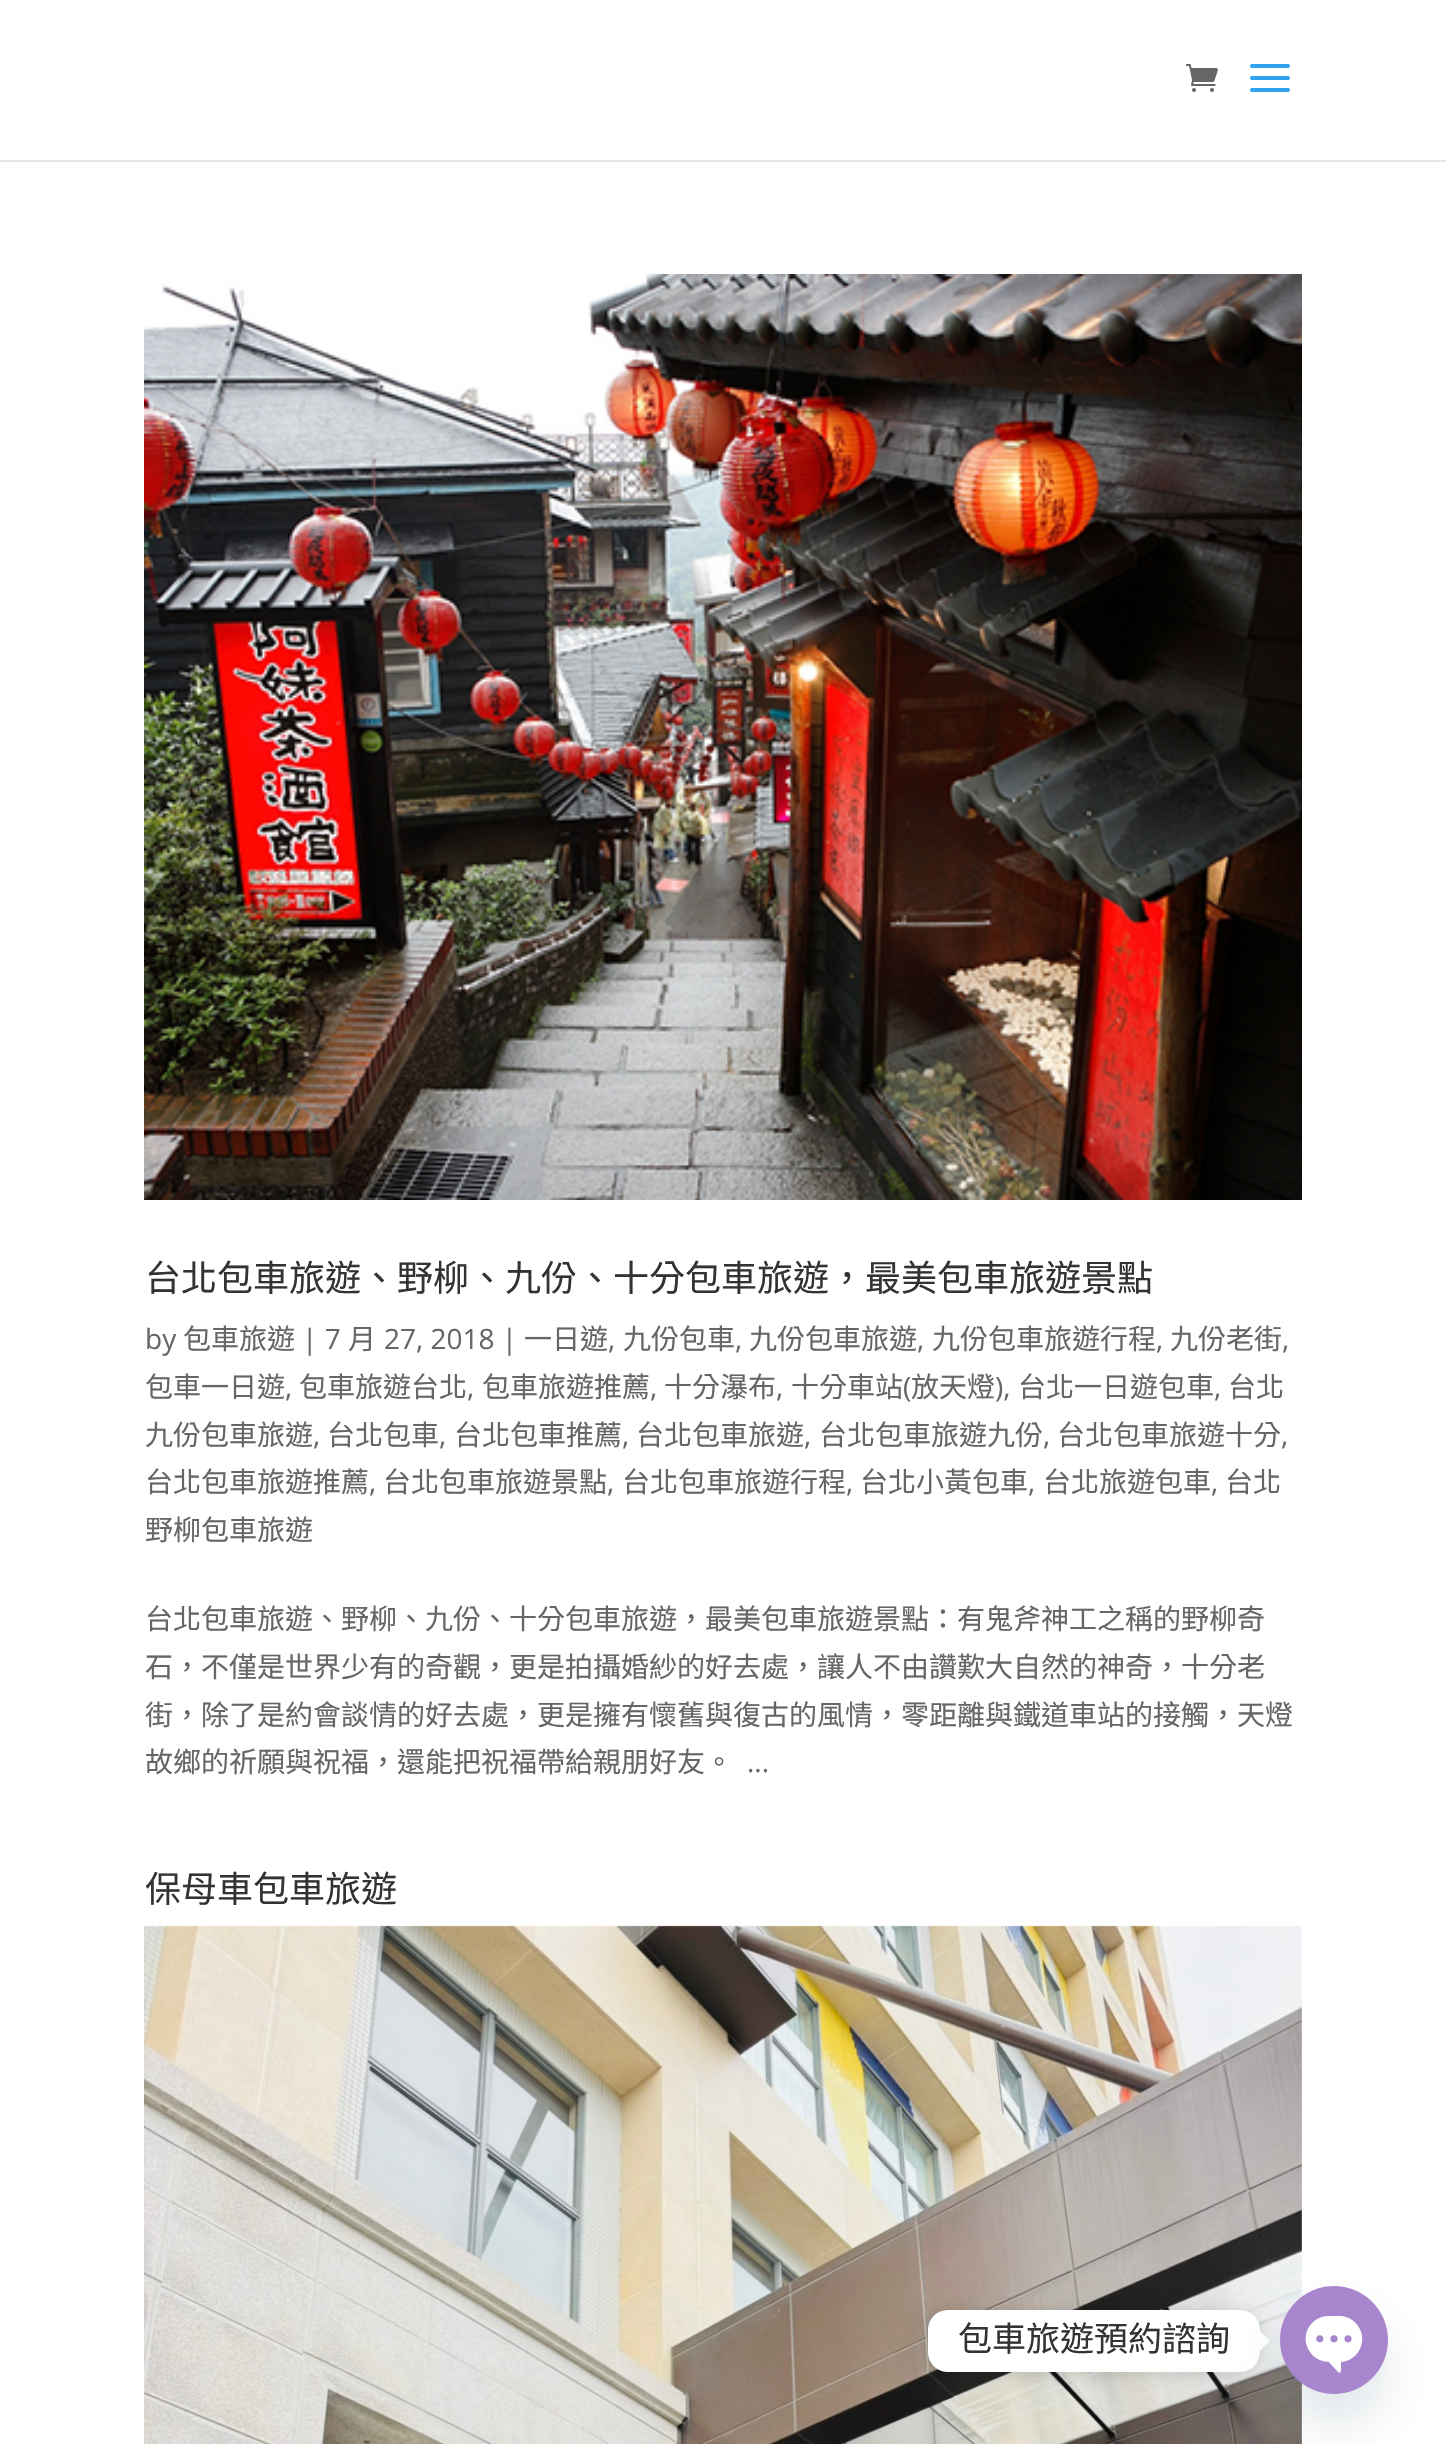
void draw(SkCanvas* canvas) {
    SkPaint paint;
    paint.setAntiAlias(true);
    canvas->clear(0xFFFFFFFF);
    paint.setColor(0xFFE6E6E6);
    canvas->drawRect(SkRect::MakeXYWH(0, 160, 1446, 2), paint);
    canvas->drawImageRect(SkImages::DeferredFromEncodedData(SkData::MakeFromFileName("img1.png")), SkRect::MakeXYWH(1186, 64, 32, 28), SkSamplingOptions());
    canvas->drawImageRect(SkImages::DeferredFromEncodedData(SkData::MakeFromFileName("img2.png")), SkRect::MakeXYWH(1250, 64, 40, 28), SkSamplingOptions());
    canvas->drawImageRect(SkImages::DeferredFromEncodedData(SkData::MakeFromFileName("img3.png")), SkRect::MakeXYWH(144, 274, 1158, 926), SkSamplingOptions());
    SkFont font1(fontMgr->matchFamilyStyle("Noto Sans CJK TC", SkFontStyle::Normal()), 36);
    font1.setSubpixel(true);
    paint.setColor(0xFF333333);
    canvas->drawString("台北包車旅遊、野柳、九份、十分包車旅遊，最美包車旅遊景點", 145, 1291, font1, paint);
    SkFont font2(fontMgr->matchFamilyStyle("Open Sans", SkFontStyle::Normal()), 28);
    font2.setSubpixel(true);
    paint.setColor(0xFF666666);
    canvas->drawString("by", 145, 1349, font2, paint);
    SkFont font3(fontMgr->matchFamilyStyle("Noto Sans CJK TC", SkFontStyle::Normal()), 28);
    font3.setSubpixel(true);
    canvas->drawString("包車旅遊", 183, 1349, font3, paint);
    canvas->drawString("| 7", 302, 1349, font2, paint);
    canvas->drawString("月", 348, 1349, font3, paint);
    canvas->drawString("27, 2018 |", 384, 1349, font2, paint);
    canvas->drawString("一日遊", 524, 1349, font3, paint);
    canvas->drawString(",", 608, 1349, font2, paint);
    canvas->drawString("九份包車", 623, 1349, font3, paint);
    canvas->drawString(",", 735, 1349, font2, paint);
    canvas->drawString("九份包車旅遊", 749, 1349, font3, paint);
    canvas->drawString(",", 917, 1349, font2, paint);
    canvas->drawString("九份包車旅遊行程", 932, 1349, font3, paint);
    canvas->drawString(",", 1156, 1349, font2, paint);
    canvas->drawString("九份老街", 1170, 1349, font3, paint);
    canvas->drawString(",", 1282, 1349, font2, paint);
    canvas->drawString("包車一日遊", 145, 1397, font3, paint);
    canvas->drawString(",", 285, 1397, font2, paint);
    canvas->drawString("包車旅遊台北", 299, 1397, font3, paint);
    canvas->drawString(",", 467, 1397, font2, paint);
    canvas->drawString("包車旅遊推薦", 482, 1397, font3, paint);
    canvas->drawString(",", 650, 1397, font2, paint);
    canvas->drawString("十分瀑布", 664, 1397, font3, paint);
    canvas->drawString(",", 776, 1397, font2, paint);
    canvas->drawString("十分車站", 791, 1397, font3, paint);
    canvas->drawString("(", 903, 1397, font2, paint);
    canvas->drawString("放天燈", 911, 1397, font3, paint);
    canvas->drawString("),", 995, 1397, font2, paint);
    canvas->drawString("台北一日遊包車", 1018, 1397, font3, paint);
    canvas->drawString(",", 1214, 1397, font2, paint);
    canvas->drawString("台北", 1228, 1397, font3, paint);
    canvas->drawString("九份包車旅遊", 145, 1445, font3, paint);
    canvas->drawString(",", 313, 1445, font2, paint);
    canvas->drawString("台北包車", 327, 1445, font3, paint);
    canvas->drawString(",", 439, 1445, font2, paint);
    canvas->drawString("台北包車推薦", 454, 1445, font3, paint);
    canvas->drawString(",", 622, 1445, font2, paint);
    canvas->drawString("台北包車旅遊", 636, 1445, font3, paint);
    canvas->drawString(",", 804, 1445, font2, paint);
    canvas->drawString("台北包車旅遊九份", 819, 1445, font3, paint);
    canvas->drawString(",", 1043, 1445, font2, paint);
    canvas->drawString("台北包車旅遊十分", 1057, 1445, font3, paint);
    canvas->drawString(",", 1281, 1445, font2, paint);
    canvas->drawString("台北包車旅遊推薦", 145, 1492, font3, paint);
    canvas->drawString(",", 369, 1492, font2, paint);
    canvas->drawString("台北包車旅遊景點", 383, 1492, font3, paint);
    canvas->drawString(",", 607, 1492, font2, paint);
    canvas->drawString("台北包車旅遊行程", 622, 1492, font3, paint);
    canvas->drawString(",", 846, 1492, font2, paint);
    canvas->drawString("台北小黃包車", 860, 1492, font3, paint);
    canvas->drawString(",", 1028, 1492, font2, paint);
    canvas->drawString("台北旅遊包車", 1043, 1492, font3, paint);
    canvas->drawString(",", 1211, 1492, font2, paint);
    canvas->drawString("台北", 1225, 1492, font3, paint);
    canvas->drawString("野柳包車旅遊", 145, 1540, font3, paint);
    canvas->drawString("台北包車旅遊、野柳、九份、十分包車旅遊，最美包車旅遊景點：有鬼斧神工之稱的野柳奇", 145, 1629, font3, paint);
    canvas->drawString("石，不僅是世界少有的奇觀，更是拍攝婚紗的好去處，讓人不由讚歎大自然的神奇，十分老", 145, 1677, font3, paint);
    canvas->drawString("街，除了是約會談情的好去處，更是擁有懷舊與復古的風情，零距離與鐵道車站的接觸，天燈", 145, 1725, font3, paint);
    canvas->drawString("故鄉的祈願與祝福，還能把祝福帶給親朋好友。", 145, 1772, font3, paint);
    canvas->drawString("...", 747, 1772, font2, paint);
    paint.setColor(0xFF333333);
    canvas->drawString("保母車包車旅遊", 145, 1902, font1, paint);
    canvas->drawImageRect(SkImages::DeferredFromEncodedData(SkData::MakeFromFileName("img4.png")), SkRect::MakeXYWH(144, 1925, 1158, 519), SkSamplingOptions());
    paint.setColor(0x26000000);
    paint.setMaskFilter(SkMaskFilter::MakeBlur(kNormal_SkBlurStyle, 7.5f));
    canvas->drawRoundRect(SkRect::MakeXYWH(928, 2312, 332, 62), 20, 20, paint);
    paint.setMaskFilter(nullptr);
    paint.setColor(0xFFFFFFFF);
    canvas->drawRoundRect(SkRect::MakeXYWH(928, 2310, 332, 62), 20, 20, paint);
    SkFont font4(fontMgr->matchFamilyStyle("Noto Sans CJK TC", SkFontStyle::Normal()), 34);
    font4.setSubpixel(true);
    paint.setColor(0xFF333333);
    canvas->drawString("包車旅遊預約諮詢", 958, 2351, font4, paint);
    paint.setColor(0xFFFFFFFF);
    canvas->drawPath(SkPathBuilder().moveTo(1260, 2351).lineTo(1260, 2331).lineTo(1270, 2341).close().detach(), paint);
    paint.setColor(0x2949687E);
    paint.setMaskFilter(SkMaskFilter::MakeBlur(kNormal_SkBlurStyle, 24));
    canvas->drawRoundRect(SkRect::MakeXYWH(1280, 2318, 108, 108), 54, 54, paint);
    paint.setMaskFilter(nullptr);
    canvas->drawImageRect(SkImages::DeferredFromEncodedData(SkData::MakeFromFileName("img5.png")), SkRect::MakeXYWH(1280, 2286, 108, 108), SkSamplingOptions());
}
